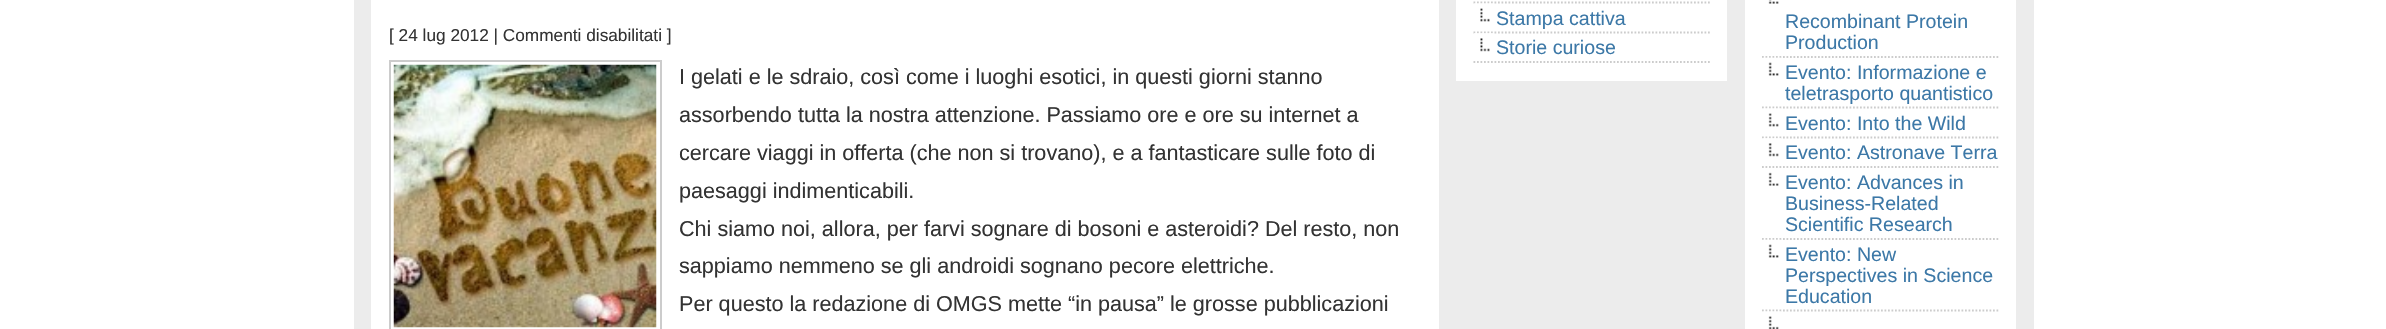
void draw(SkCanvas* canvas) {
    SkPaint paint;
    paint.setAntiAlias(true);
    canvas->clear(0xFFFFFFFF);
    paint.setColor(0xFFECECEC);
    canvas->drawRect(SkRect::MakeXYWH(354, 0, 1680, 329), paint);
    paint.setColor(0xFFFFFFFF);
    canvas->drawRect(SkRect::MakeXYWH(371, 0, 1068, 329), paint);
    SkFont font1(fontMgr->matchFamilyStyle("Liberation Sans", SkFontStyle::Normal()), 17.25f);
    font1.setSubpixel(true);
    paint.setColor(0xFF333333);
    canvas->drawString("[ 24 lug 2012 | Commenti disabilitati ]", 389, 41, font1, paint);
    paint.setStyle(SkPaint::kStroke_Style);
    paint.setStrokeWidth(2);
    paint.setColor(0xFFCCCCCC);
    canvas->drawRect(SkRect::MakeXYWH(390, 61, 271, 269), paint);
    canvas->drawImageRect(SkImages::DeferredFromEncodedData(SkData::MakeFromFileName("img1.png")), SkRect::MakeXYWH(393, 64, 264, 264), SkSamplingOptions());
    SkFont font2(fontMgr->matchFamilyStyle("Liberation Sans", SkFontStyle::Normal()), 21.6f);
    font2.setSubpixel(true);
    paint.setStyle(SkPaint::kFill_Style);
    paint.setColor(0xFF333333);
    canvas->drawString("I gelati e le sdraio, così come i luoghi esotici, in questi giorni stanno", 679, 84, font2, paint);
    canvas->drawString("assorbendo tutta la nostra attenzione. Passiamo ore e ore su internet a", 679, 122, font2, paint);
    canvas->drawString("cercare viaggi in offerta (che non si trovano), e a fantasticare sulle foto di", 679, 160, font2, paint);
    canvas->drawString("paesaggi indimenticabili.", 679, 198, font2, paint);
    canvas->drawString("Chi siamo noi, allora, per farvi sognare di bosoni e asteroidi? Del resto, non", 679, 236, font2, paint);
    canvas->drawString("sappiamo nemmeno se gli androidi sognano pecore elettriche.", 679, 273, font2, paint);
    canvas->drawString("Per questo la redazione di OMGS mette “in pausa” le grosse pubblicazioni", 679, 311, font2, paint);
    paint.setColor(0xFFFFFFFF);
    canvas->drawRect(SkRect::MakeXYWH(1456, 0, 271, 81), paint);
    paint.setStyle(SkPaint::kStroke_Style);
    paint.setStrokeWidth(1.8f);
    paint.setColor(0xFFCCCCCC);
    paint.setPathEffect(SkDashPathEffect::Make({{1.75f, 1.75f}}, 0));
    canvas->drawPath(SkPathBuilder().moveTo(1473.5f, 2.5f).lineTo(1710, 2.5f).detach(), paint);
    paint.setPathEffect(nullptr);
    canvas->drawImageRect(SkImages::DeferredFromEncodedData(SkData::MakeFromFileName("img2.png")), SkRect::MakeXYWH(1474, 3, 19, 19), SkSamplingOptions());
    paint.setPathEffect(SkDashPathEffect::Make({{1.75f, 1.75f}}, 0));
    canvas->drawPath(SkPathBuilder().moveTo(1473.5f, 32.5f).lineTo(1710, 32.5f).detach(), paint);
    paint.setPathEffect(nullptr);
    SkFont font3(fontMgr->matchFamilyStyle("Liberation Sans", SkFontStyle::Normal()), 19.6f);
    font3.setSubpixel(true);
    paint.setStyle(SkPaint::kFill_Style);
    paint.setColor(0xFF3C78A7);
    canvas->drawString("Stampa cattiva", 1496, 25, font3, paint);
    canvas->drawImageRect(SkImages::DeferredFromEncodedData(SkData::MakeFromFileName("img3.png")), SkRect::MakeXYWH(1474, 33, 19, 19), SkSamplingOptions());
    paint.setStyle(SkPaint::kStroke_Style);
    paint.setColor(0xFFCCCCCC);
    paint.setPathEffect(SkDashPathEffect::Make({{1.75f, 1.75f}}, 0));
    canvas->drawPath(SkPathBuilder().moveTo(1473.5f, 62).lineTo(1710, 62).detach(), paint);
    paint.setPathEffect(nullptr);
    paint.setStyle(SkPaint::kFill_Style);
    paint.setColor(0xFF3C78A7);
    canvas->drawString("Storie curiose", 1496, 54, font3, paint);
    paint.setColor(0xFFFFFFFF);
    canvas->drawRect(SkRect::MakeXYWH(1745, 0, 271, 329), paint);
    canvas->drawImageRect(SkImages::DeferredFromEncodedData(SkData::MakeFromFileName("img4.png")), SkRect::MakeXYWH(1768, 0, 11, 4), SkSamplingOptions());
    paint.setStyle(SkPaint::kStroke_Style);
    paint.setColor(0xFFCCCCCC);
    paint.setPathEffect(SkDashPathEffect::Make({{1.75f, 1.75f}}, 0));
    canvas->drawPath(SkPathBuilder().moveTo(1762, 57).lineTo(1998.5f, 57).detach(), paint);
    paint.setPathEffect(nullptr);
    paint.setStyle(SkPaint::kFill_Style);
    paint.setColor(0xFF3C78A7);
    canvas->drawString("Recombinant Protein", 1785, 28, font3, paint);
    canvas->drawString("Production", 1785, 49, font3, paint);
    canvas->drawImageRect(SkImages::DeferredFromEncodedData(SkData::MakeFromFileName("img5.png")), SkRect::MakeXYWH(1762, 57, 19, 19), SkSamplingOptions());
    paint.setStyle(SkPaint::kStroke_Style);
    paint.setColor(0xFFCCCCCC);
    paint.setPathEffect(SkDashPathEffect::Make({{1.75f, 1.75f}}, 0));
    canvas->drawPath(SkPathBuilder().moveTo(1762, 107.5f).lineTo(1998.5f, 107.5f).detach(), paint);
    paint.setPathEffect(nullptr);
    paint.setStyle(SkPaint::kFill_Style);
    paint.setColor(0xFF3C78A7);
    canvas->drawString("Evento: Informazione e", 1785, 79, font3, paint);
    canvas->drawString("teletrasporto quantistico", 1785, 100, font3, paint);
    canvas->drawImageRect(SkImages::DeferredFromEncodedData(SkData::MakeFromFileName("img6.png")), SkRect::MakeXYWH(1762, 108, 19, 19), SkSamplingOptions());
    paint.setStyle(SkPaint::kStroke_Style);
    paint.setColor(0xFFCCCCCC);
    paint.setPathEffect(SkDashPathEffect::Make({{1.75f, 1.75f}}, 0));
    canvas->drawPath(SkPathBuilder().moveTo(1762, 137.5f).lineTo(1998.5f, 137.5f).detach(), paint);
    paint.setPathEffect(nullptr);
    paint.setStyle(SkPaint::kFill_Style);
    paint.setColor(0xFF3C78A7);
    canvas->drawString("Evento: Into the Wild", 1785, 130, font3, paint);
    canvas->drawImageRect(SkImages::DeferredFromEncodedData(SkData::MakeFromFileName("img7.png")), SkRect::MakeXYWH(1762, 138, 19, 19), SkSamplingOptions());
    paint.setStyle(SkPaint::kStroke_Style);
    paint.setColor(0xFFCCCCCC);
    paint.setPathEffect(SkDashPathEffect::Make({{1.75f, 1.75f}}, 0));
    canvas->drawPath(SkPathBuilder().moveTo(1762, 167).lineTo(1998.5f, 167).detach(), paint);
    paint.setPathEffect(nullptr);
    paint.setStyle(SkPaint::kFill_Style);
    paint.setColor(0xFF3C78A7);
    canvas->drawString("Evento: Astronave Terra", 1785, 159, font3, paint);
    canvas->drawImageRect(SkImages::DeferredFromEncodedData(SkData::MakeFromFileName("img8.png")), SkRect::MakeXYWH(1768, 172, 11, 14), SkSamplingOptions());
    paint.setStyle(SkPaint::kStroke_Style);
    paint.setColor(0xFFCCCCCC);
    paint.setPathEffect(SkDashPathEffect::Make({{1.75f, 1.75f}}, 0));
    canvas->drawPath(SkPathBuilder().moveTo(1762, 239).lineTo(1998.5f, 239).detach(), paint);
    paint.setPathEffect(nullptr);
    paint.setStyle(SkPaint::kFill_Style);
    paint.setColor(0xFF3C78A7);
    canvas->drawString("Evento: Advances in", 1785, 189, font3, paint);
    canvas->drawString("Business-Related", 1785, 210, font3, paint);
    canvas->drawString("Scientific Research", 1785, 231, font3, paint);
    canvas->drawImageRect(SkImages::DeferredFromEncodedData(SkData::MakeFromFileName("img5.png")), SkRect::MakeXYWH(1762, 239, 19, 19), SkSamplingOptions());
    paint.setStyle(SkPaint::kStroke_Style);
    paint.setColor(0xFFCCCCCC);
    paint.setPathEffect(SkDashPathEffect::Make({{1.75f, 1.75f}}, 0));
    canvas->drawPath(SkPathBuilder().moveTo(1762, 310.5f).lineTo(1998.5f, 310.5f).detach(), paint);
    paint.setPathEffect(nullptr);
    paint.setStyle(SkPaint::kFill_Style);
    paint.setColor(0xFF3C78A7);
    canvas->drawString("Evento: New", 1785, 261, font3, paint);
    canvas->drawString("Perspectives in Science", 1785, 282, font3, paint);
    canvas->drawString("Education", 1785, 303, font3, paint);
    canvas->drawImageRect(SkImages::DeferredFromEncodedData(SkData::MakeFromFileName("img9.png")), SkRect::MakeXYWH(1762, 311, 19, 18), SkSamplingOptions());
}
